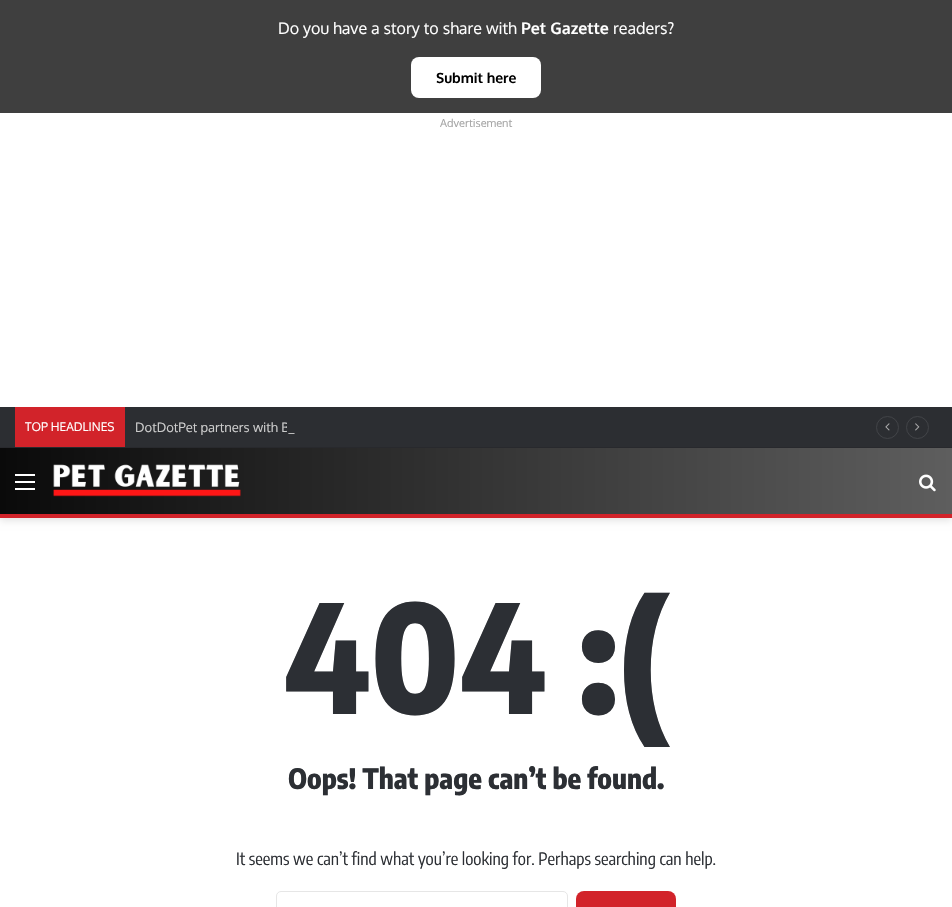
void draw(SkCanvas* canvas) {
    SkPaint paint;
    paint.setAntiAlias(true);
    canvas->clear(0xFF3F3F3F);
    SkFont font1(fontMgr->matchFamilyStyle("Oxygen", SkFontStyle::Normal()), 16);
    font1.setSubpixel(true);
    paint.setColor(0xFFFFFFFF);
    canvas->drawString("Do you have a story to share with", 278, 34, font1, paint);
    SkFont font2(fontMgr->matchFamilyStyle("Oxygen", SkFontStyle::Bold()), 16);
    font2.setSubpixel(true);
    canvas->drawString("Pet Gazette", 521, 34, font2, paint);
    canvas->drawString("readers?", 613, 34, font1, paint);
    canvas->drawRoundRect(SkRect::MakeXYWH(411, 57, 130, 41), 8, 8, paint);
    SkFont font3(fontMgr->matchFamilyStyle("Oxygen", SkFontStyle::Bold()), 14);
    font3.setSubpixel(true);
    paint.setColor(0xFF000000);
    canvas->drawString("Submit here", 436, 83, font3, paint);
    paint.setColor(0xFFFFFFFF);
    canvas->drawRect(SkRect::MakeXYWH(0, 113, 952, 794), paint);
    SkFont font4(fontMgr->matchFamilyStyle("Oxygen", SkFontStyle::Normal()), 11);
    font4.setSubpixel(true);
    paint.setColor(0xFFA5A5A5);
    canvas->drawString("Advertisement", 440, 127, font4, paint);
    paint.setColor(0x1A000000);
    paint.setMaskFilter(SkMaskFilter::MakeBlur(kNormal_SkBlurStyle, 3.5f));
    canvas->drawRect(SkRect::MakeXYWH(0, 451, 952, 70), paint);
    paint.setMaskFilter(nullptr);
    paint.setColor(0xFF2C2E32);
    canvas->drawRect(SkRect::MakeXYWH(0, 407, 952, 40), paint);
    paint.setColor(0xFF28292D);
    canvas->drawRect(SkRect::MakeXYWH(0, 447, 952, 1), paint);
    paint.setColor(0xFFD2232A);
    canvas->drawRect(SkRect::MakeXYWH(15, 407, 110, 40), paint);
    SkFont font5(fontMgr->matchFamilyStyle("Oxygen", SkFontStyle::Normal()), 12);
    font5.setSubpixel(true);
    paint.setColor(0xFFFFFFFF);
    canvas->drawString("TOP HEADLINES", 25, 431, font5, paint);
    SkFont font6(fontMgr->matchFamilyStyle("Oxygen", SkFontStyle::Normal()), 13);
    font6.setSubpixel(true);
    paint.setColor(0xFFCCCCCC);
    canvas->drawString("DotDotPet partners with B", 135, 432, font6, paint);
    paint.setColor(0xFF2C2E32);
    canvas->drawRect(SkRect::MakeXYWH(287, 423, 2, 9), paint);
    paint.setColor(0xFFCCCCCC);
    canvas->drawString("_", 288, 432, font6, paint);
    paint.setStyle(SkPaint::kStroke_Style);
    paint.setStrokeWidth(1);
    paint.setColor(0xFF414347);
    canvas->drawCircle(887.5f, 427.5f, 11, paint);
    canvas->drawImageRect(SkImages::DeferredFromEncodedData(SkData::MakeFromFileName("img1.png")), SkRect::MakeXYWH(885, 423, 5, 8), SkSamplingOptions());
    canvas->drawCircle(917.5f, 427.5f, 11, paint);
    canvas->drawImageRect(SkImages::DeferredFromEncodedData(SkData::MakeFromFileName("img2.png")), SkRect::MakeXYWH(915, 423, 5, 8), SkSamplingOptions());
    paint.setStyle(SkPaint::kFill_Style);
    {
        const SkColor colors[] = {0xFF0A0A0A, 0xFF5E5E5E};
        const float stops[] = {0, 1};
        const SkPoint ends[] = {{0, 481}, {952, 481}};
        paint.setShader(SkGradientShader::MakeLinear(ends, colors, stops, 2, SkTileMode::kClamp));
        paint.setAlpha(255);
    }
    canvas->drawRect(SkRect::MakeXYWH(0, 448, 952, 66), paint);
    paint.setShader(nullptr);
    paint.setColor(0xFFD2232A);
    canvas->drawRect(SkRect::MakeXYWH(0, 514, 952, 4), paint);
    paint.setColor(0xFFFFFFFF);
    canvas->drawRect(SkRect::MakeXYWH(15, 481, 20, 2), paint);
    canvas->drawRect(SkRect::MakeXYWH(15, 474, 20, 2), paint);
    canvas->drawRect(SkRect::MakeXYWH(15, 488, 20, 2), paint);
    canvas->drawImageRect(SkImages::DeferredFromEncodedData(SkData::MakeFromFileName("img3.png")), SkRect::MakeXYWH(53, 464, 188, 33), SkSamplingOptions());
    canvas->drawImageRect(SkImages::DeferredFromEncodedData(SkData::MakeFromFileName("img4.png")), SkRect::MakeXYWH(919, 474, 17, 18), SkSamplingOptions());
    SkFont font7(fontMgr->matchFamilyStyle("Encode Sans Condensed", SkFontStyle(800, SkFontStyle::kNormal_Width, SkFontStyle::kUpright_Slant)), 150);
    font7.setSubpixel(true);
    paint.setColor(0xFF2C2F34);
    canvas->drawString("404 :(", 284, 714, font7, paint);
    SkFont font8(fontMgr->matchFamilyStyle("Encode Sans Condensed", SkFontStyle(800, SkFontStyle::kNormal_Width, SkFontStyle::kUpright_Slant)), 28);
    font8.setSubpixel(true);
    canvas->drawString("Oops! That page can’t be found.", 288, 789, font8, paint);
    SkFont font9(fontMgr->matchFamilyStyle("Encode Sans Condensed", SkFontStyle::Normal()), 17);
    font9.setSubpixel(true);
    canvas->drawString("It seems we can’t find what you’re looking for. Perhaps searching can help.", 236, 865, font9, paint);
    paint.setStyle(SkPaint::kStroke_Style);
    paint.setColor(0xFFE6E6E6);
    canvas->drawRoundRect(SkRect::MakeXYWH(276.5f, 891.5f, 291, 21), 4.5f, 4.5f, paint);
    paint.setStyle(SkPaint::kFill_Style);
    paint.setColor(0xFFD2232A);
    canvas->drawRoundRect(SkRect::MakeXYWH(576, 891, 100, 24), 8, 8, paint);
}
